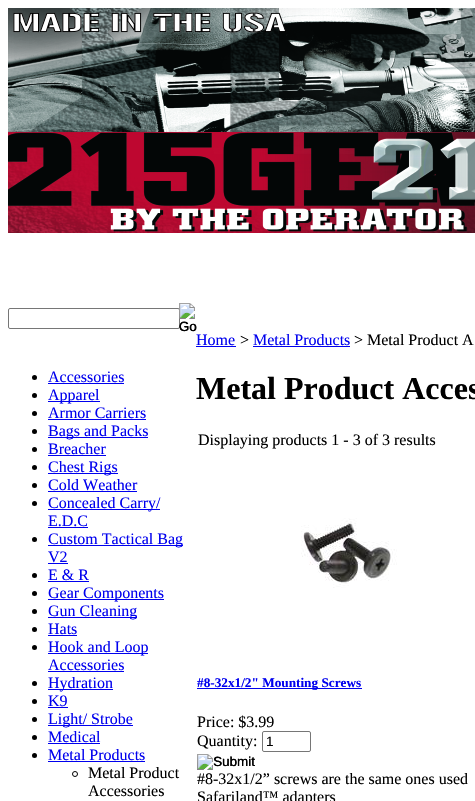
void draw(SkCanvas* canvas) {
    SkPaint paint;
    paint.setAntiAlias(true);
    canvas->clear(0xFFFFFFFF);
    canvas->drawImageRect(SkImages::DeferredFromEncodedData(SkData::MakeFromFileName("img1.png")), SkRect::MakeXYWH(8, 8, 467, 225), SkSamplingOptions());
    paint.setStyle(SkPaint::kStroke_Style);
    paint.setStrokeWidth(1);
    paint.setColor(0xFF767676);
    canvas->drawRoundRect(SkRect::MakeXYWH(8.5f, 308.5f, 171, 20), 1.5f, 1.5f, paint);
    canvas->drawImageRect(SkImages::DeferredFromEncodedData(SkData::MakeFromFileName("img2.png")), SkRect::MakeXYWH(179, 303, 17, 28), SkSamplingOptions());
    SkFont font1(fontMgr->matchFamilyStyle("Liberation Sans", SkFontStyle::Normal()), 13.5f);
    font1.setSubpixel(true);
    paint.setStyle(SkPaint::kFill_Style);
    paint.setColor(0xFF000000);
    canvas->drawString("Go", 179, 331, font1, paint);
    canvas->drawCircle(34.5f, 377.5f, 2.5f, paint);
    SkFont font2(fontMgr->matchFamilyStyle("Liberation Serif", SkFontStyle::Normal()), 16);
    font2.setSubpixel(true);
    paint.setColor(0xFF0000EE);
    canvas->drawString("Accessories", 48, 382, font2, paint);
    canvas->drawRect(SkRect::MakeXYWH(48, 383, 76, 1), paint);
    paint.setColor(0xFF000000);
    canvas->drawCircle(34.5f, 395.5f, 2.5f, paint);
    paint.setColor(0xFF0000EE);
    canvas->drawRect(SkRect::MakeXYWH(48, 401, 52, 1), paint);
    canvas->drawString("Apparel", 48, 400, font2, paint);
    paint.setColor(0xFF000000);
    canvas->drawCircle(34.5f, 413.5f, 2.5f, paint);
    paint.setColor(0xFF0000EE);
    canvas->drawString("Armor Carriers", 48, 418, font2, paint);
    canvas->drawRect(SkRect::MakeXYWH(48, 419, 98, 1), paint);
    paint.setColor(0xFF000000);
    canvas->drawCircle(34.5f, 431.5f, 2.5f, paint);
    paint.setColor(0xFF0000EE);
    canvas->drawRect(SkRect::MakeXYWH(48, 437, 100, 1), paint);
    canvas->drawString("Bags and Packs", 48, 436, font2, paint);
    paint.setColor(0xFF000000);
    canvas->drawCircle(34.5f, 449.5f, 2.5f, paint);
    paint.setColor(0xFF0000EE);
    canvas->drawString("Breacher", 48, 454, font2, paint);
    canvas->drawRect(SkRect::MakeXYWH(48, 455, 58, 1), paint);
    paint.setColor(0xFF000000);
    canvas->drawCircle(34.5f, 467.5f, 2.5f, paint);
    paint.setColor(0xFF0000EE);
    canvas->drawRect(SkRect::MakeXYWH(48, 473, 70, 1), paint);
    canvas->drawString("Chest Rigs", 48, 472, font2, paint);
    paint.setColor(0xFF000000);
    canvas->drawCircle(34.5f, 485.5f, 2.5f, paint);
    paint.setColor(0xFF0000EE);
    canvas->drawString("Cold Weather", 48, 490, font2, paint);
    canvas->drawRect(SkRect::MakeXYWH(48, 491, 89, 1), paint);
    paint.setColor(0xFF000000);
    canvas->drawCircle(34.5f, 503.5f, 2.5f, paint);
    paint.setColor(0xFF0000EE);
    canvas->drawRect(SkRect::MakeXYWH(48, 509, 112, 1), paint);
    canvas->drawString("Concealed Carry/", 48, 508, font2, paint);
    canvas->drawString("E.D.C", 48, 526, font2, paint);
    canvas->drawRect(SkRect::MakeXYWH(48, 527, 40, 1), paint);
    paint.setColor(0xFF000000);
    canvas->drawCircle(34.5f, 539.5f, 2.5f, paint);
    paint.setColor(0xFF0000EE);
    canvas->drawRect(SkRect::MakeXYWH(48, 545, 135, 1), paint);
    canvas->drawString("Custom Tactical Bag", 48, 544, font2, paint);
    canvas->drawString("V2", 48, 562, font2, paint);
    canvas->drawRect(SkRect::MakeXYWH(48, 563, 20, 1), paint);
    paint.setColor(0xFF000000);
    canvas->drawCircle(34.5f, 575.5f, 2.5f, paint);
    paint.setColor(0xFF0000EE);
    canvas->drawString("E & R", 48, 580, font2, paint);
    canvas->drawRect(SkRect::MakeXYWH(48, 581, 41, 1), paint);
    paint.setColor(0xFF000000);
    canvas->drawCircle(34.5f, 593.5f, 2.5f, paint);
    paint.setColor(0xFF0000EE);
    canvas->drawRect(SkRect::MakeXYWH(48, 599, 116, 1), paint);
    canvas->drawString("Gear Components", 48, 598, font2, paint);
    paint.setColor(0xFF000000);
    canvas->drawCircle(34.5f, 611.5f, 2.5f, paint);
    paint.setColor(0xFF0000EE);
    canvas->drawRect(SkRect::MakeXYWH(48, 617, 89, 1), paint);
    canvas->drawString("Gun Cleaning", 48, 616, font2, paint);
    paint.setColor(0xFF000000);
    canvas->drawCircle(34.5f, 629.5f, 2.5f, paint);
    paint.setColor(0xFF0000EE);
    canvas->drawString("Hats", 48, 634, font2, paint);
    canvas->drawRect(SkRect::MakeXYWH(48, 635, 29, 1), paint);
    paint.setColor(0xFF000000);
    canvas->drawCircle(34.5f, 647.5f, 2.5f, paint);
    paint.setColor(0xFF0000EE);
    canvas->drawRect(SkRect::MakeXYWH(48, 653, 100, 1), paint);
    canvas->drawString("Hook and Loop", 48, 652, font2, paint);
    canvas->drawString("Accessories", 48, 670, font2, paint);
    canvas->drawRect(SkRect::MakeXYWH(48, 671, 76, 1), paint);
    paint.setColor(0xFF000000);
    canvas->drawCircle(34.5f, 683.5f, 2.5f, paint);
    paint.setColor(0xFF0000EE);
    canvas->drawRect(SkRect::MakeXYWH(48, 689, 65, 1), paint);
    canvas->drawString("Hydration", 48, 688, font2, paint);
    paint.setColor(0xFF000000);
    canvas->drawCircle(34.5f, 701.5f, 2.5f, paint);
    paint.setColor(0xFF0000EE);
    canvas->drawString("K9", 48, 706, font2, paint);
    canvas->drawRect(SkRect::MakeXYWH(48, 707, 20, 1), paint);
    paint.setColor(0xFF000000);
    canvas->drawCircle(34.5f, 719.5f, 2.5f, paint);
    paint.setColor(0xFF0000EE);
    canvas->drawRect(SkRect::MakeXYWH(48, 725, 85, 1), paint);
    canvas->drawString("Light/ Strobe", 48, 724, font2, paint);
    paint.setColor(0xFF000000);
    canvas->drawCircle(34.5f, 737.5f, 2.5f, paint);
    paint.setColor(0xFF0000EE);
    canvas->drawString("Medical", 48, 742, font2, paint);
    canvas->drawRect(SkRect::MakeXYWH(48, 743, 52, 1), paint);
    paint.setColor(0xFF000000);
    canvas->drawCircle(34.5f, 755.5f, 2.5f, paint);
    paint.setColor(0xFF0000EE);
    canvas->drawString("Metal Products", 48, 760, font2, paint);
    canvas->drawRect(SkRect::MakeXYWH(48, 761, 97, 1), paint);
    paint.setStyle(SkPaint::kStroke_Style);
    paint.setColor(0xFF000000);
    canvas->drawCircle(75, 774, 2.5f, paint);
    paint.setStyle(SkPaint::kFill_Style);
    canvas->drawString("Metal Product", 88, 778, font2, paint);
    canvas->drawString("Accessories", 88, 796, font2, paint);
    paint.setColor(0xFF0000EE);
    canvas->drawString("Home", 196, 345, font2, paint);
    canvas->drawRect(SkRect::MakeXYWH(196, 346, 40, 1), paint);
    paint.setColor(0xFF000000);
    canvas->drawString(">", 240, 345, font2, paint);
    paint.setColor(0xFF0000EE);
    canvas->drawString("Metal Products", 253, 345, font2, paint);
    canvas->drawRect(SkRect::MakeXYWH(253, 346, 97, 1), paint);
    paint.setColor(0xFF000000);
    canvas->drawString("> Metal Product A", 354, 345, font2, paint);
    SkFont font3(fontMgr->matchFamilyStyle("Liberation Serif", SkFontStyle::Bold()), 32);
    font3.setSubpixel(true);
    canvas->drawString("Metal Product Acces", 196, 399, font3, paint);
    canvas->drawString("Displaying products 1 - 3 of 3 results", 198, 445, font2, paint);
    canvas->drawImageRect(SkImages::DeferredFromEncodedData(SkData::MakeFromFileName("img3.png")), SkRect::MakeXYWH(301, 518, 96, 70), SkSamplingOptions());
    paint.setColor(0xFF0000EE);
    canvas->drawRect(SkRect::MakeXYWH(197, 688, 165, 1), paint);
    SkFont font4(fontMgr->matchFamilyStyle("Liberation Serif", SkFontStyle::Bold()), 13.25f);
    font4.setSubpixel(true);
    canvas->drawString("#8-32x1/2\" Mounting Screws", 197, 687, font4, paint);
    paint.setColor(0xFF000000);
    canvas->drawString("Price: $3.99", 197, 727, font2, paint);
    canvas->drawString("Quantity:", 197, 746, font2, paint);
    paint.setStyle(SkPaint::kStroke_Style);
    paint.setColor(0xFF767676);
    canvas->drawRoundRect(SkRect::MakeXYWH(262.5f, 731.5f, 48, 20), 1.5f, 1.5f, paint);
    paint.setStyle(SkPaint::kFill_Style);
    paint.setColor(0xFF000000);
    canvas->drawString("1", 266, 746, font1, paint);
    canvas->drawImageRect(SkImages::DeferredFromEncodedData(SkData::MakeFromFileName("img4.png")), SkRect::MakeXYWH(197, 754, 58, 16), SkSamplingOptions());
    canvas->drawString("Submit", 213, 766, font1, paint);
    canvas->drawString("#8-32x1/2” screws are the same ones used", 197, 784, font2, paint);
    canvas->drawString("Safariland™ adapters", 197, 802, font2, paint);
}
